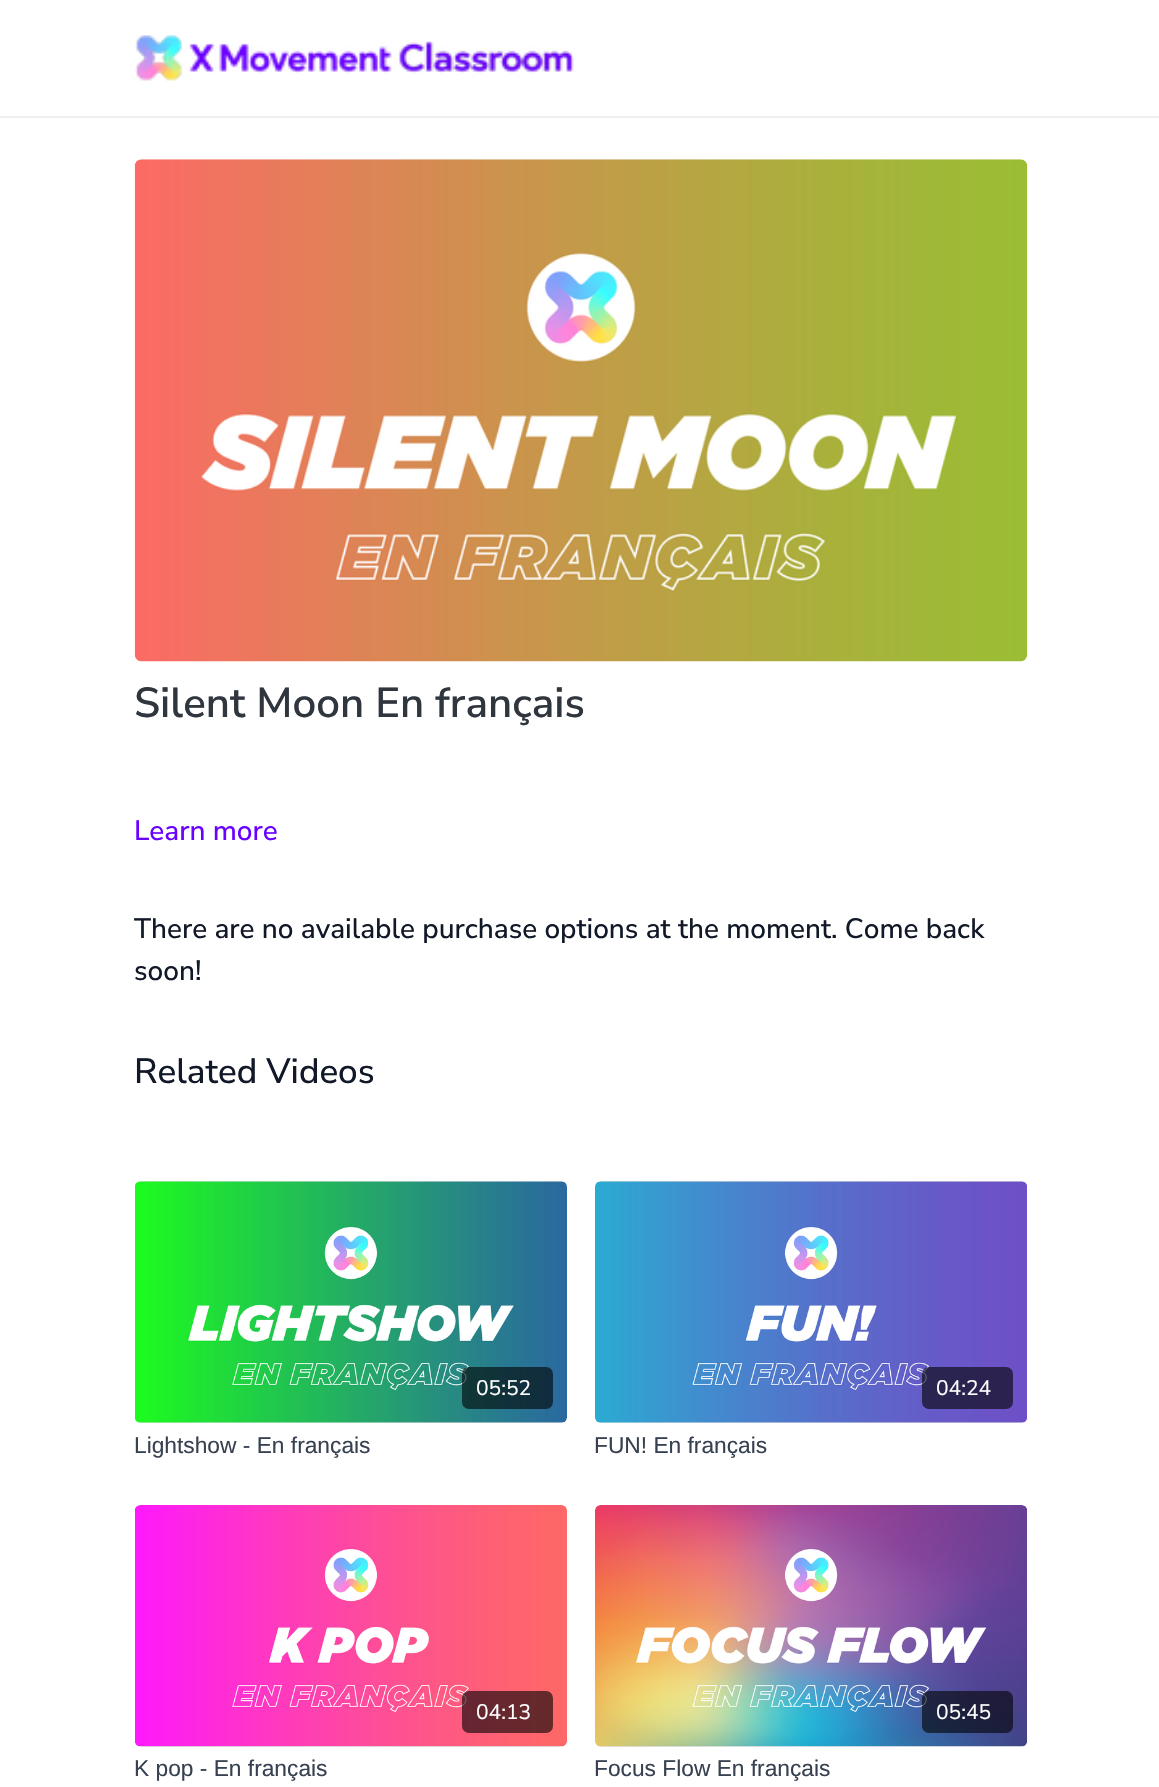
void draw(SkCanvas* canvas) {
    SkPaint paint;
    paint.setAntiAlias(true);
    canvas->clear(0xFFFFFFFF);
    paint.setColor(0xFFEFEFEF);
    canvas->drawRect(SkRect::MakeXYWH(0, 116, 1159, 2), paint);
    canvas->drawImageRect(SkImages::DeferredFromEncodedData(SkData::MakeFromFileName("img1.png")), SkRect::MakeXYWH(135, 35, 439, 46), SkSamplingOptions());
    canvas->drawImageRect(SkImages::DeferredFromEncodedData(SkData::MakeFromFileName("img2.png")), SkRect::MakeXYWH(134, 159, 894, 503), SkSamplingOptions());
    SkFont font1(fontMgr->matchFamilyStyle("Nunito Sans", SkFontStyle(600, SkFontStyle::kNormal_Width, SkFontStyle::kUpright_Slant)), 42);
    font1.setSubpixel(true);
    paint.setColor(0xFF30363E);
    canvas->drawString("Silent Moon En français", 134, 717, font1, paint);
    SkFont font2(fontMgr->matchFamilyStyle("Nunito Sans", SkFontStyle(500, SkFontStyle::kNormal_Width, SkFontStyle::kUpright_Slant)), 28);
    font2.setSubpixel(true);
    paint.setColor(0xFF6901FF);
    canvas->drawString("Learn more", 134, 840, font2, paint);
    paint.setColor(0xFF111827);
    canvas->drawString("There are no available purchase options at the moment. Come back", 134, 938, font2, paint);
    canvas->drawString("soon!", 134, 980, font2, paint);
    SkFont font3(fontMgr->matchFamilyStyle("Nunito Sans", SkFontStyle(500, SkFontStyle::kNormal_Width, SkFontStyle::kUpright_Slant)), 35);
    font3.setSubpixel(true);
    canvas->drawString("Related Videos", 134, 1083, font3, paint);
    {
        const SkColor colors[] = {0xFFDEDEDE, 0xFFE1E1E1, 0xFFE3E3E3};
        const float stops[] = {0.08f, 0.18f, 0.33f};
        const SkPoint ends[] = {{135, 1302}, {567, 1302}};
        paint.setShader(SkGradientShader::MakeLinear(ends, colors, stops, 3, SkTileMode::kClamp));
        paint.setAlpha(255);
    }
    canvas->drawRoundRect(SkRect::MakeXYWH(135, 1181, 432, 242), 7, 7, paint);
    canvas->drawImageRect(SkImages::DeferredFromEncodedData(SkData::MakeFromFileName("img3.png")), SkRect::MakeXYWH(135, 1181, 432, 242), SkSamplingOptions());
    paint.setShader(nullptr);
    paint.setColor(0x99000000);
    canvas->drawRoundRect(SkRect::MakeXYWH(462, 1367, 91, 42), 7, 7, paint);
    SkFont font4(fontMgr->matchFamilyStyle("Nunito Sans", SkFontStyle::Normal()), 21);
    font4.setSubpixel(true);
    paint.setColor(0xFFFFFFFF);
    canvas->drawString("05:52", 476, 1395, font4, paint);
    SkFont font5(fontMgr->matchFamilyStyle("Liberation Sans", SkFontStyle::Normal()), 22.75f);
    font5.setSubpixel(true);
    paint.setColor(0xFF374151);
    canvas->drawString("Lightshow - En français", 134, 1453, font5, paint);
    {
        const SkColor colors[] = {0xFFDEDEDE, 0xFFE1E1E1, 0xFFE3E3E3};
        const float stops[] = {0.08f, 0.18f, 0.33f};
        const SkPoint ends[] = {{595, 1302}, {1027, 1302}};
        paint.setShader(SkGradientShader::MakeLinear(ends, colors, stops, 3, SkTileMode::kClamp));
        paint.setAlpha(255);
    }
    canvas->drawRoundRect(SkRect::MakeXYWH(595, 1181, 432, 242), 7, 7, paint);
    canvas->drawImageRect(SkImages::DeferredFromEncodedData(SkData::MakeFromFileName("img4.png")), SkRect::MakeXYWH(595, 1181, 432, 242), SkSamplingOptions());
    paint.setShader(nullptr);
    paint.setColor(0x99000000);
    canvas->drawRoundRect(SkRect::MakeXYWH(922, 1367, 91, 42), 7, 7, paint);
    paint.setColor(0xFFFFFFFF);
    canvas->drawString("04:24", 936, 1395, font4, paint);
    paint.setColor(0xFF374151);
    canvas->drawString("FUN! En français", 594, 1453, font5, paint);
    {
        const SkColor colors[] = {0xFFDEDEDE, 0xFFE1E1E1, 0xFFE3E3E3};
        const float stops[] = {0.08f, 0.18f, 0.33f};
        const SkPoint ends[] = {{135, 1626}, {567, 1626}};
        paint.setShader(SkGradientShader::MakeLinear(ends, colors, stops, 3, SkTileMode::kClamp));
        paint.setAlpha(255);
    }
    canvas->drawRoundRect(SkRect::MakeXYWH(135, 1505, 432, 242), 7, 7, paint);
    canvas->drawImageRect(SkImages::DeferredFromEncodedData(SkData::MakeFromFileName("img5.png")), SkRect::MakeXYWH(135, 1505, 432, 242), SkSamplingOptions());
    paint.setShader(nullptr);
    paint.setColor(0x99000000);
    canvas->drawRoundRect(SkRect::MakeXYWH(462, 1691, 91, 42), 7, 7, paint);
    paint.setColor(0xFFFFFFFF);
    canvas->drawString("04:13", 476, 1719, font4, paint);
    paint.setColor(0xFF374151);
    canvas->drawString("K pop - En français", 134, 1776, font5, paint);
    {
        const SkColor colors[] = {0xFFDEDEDE, 0xFFE1E1E1, 0xFFE3E3E3};
        const float stops[] = {0.08f, 0.18f, 0.33f};
        const SkPoint ends[] = {{595, 1626}, {1027, 1626}};
        paint.setShader(SkGradientShader::MakeLinear(ends, colors, stops, 3, SkTileMode::kClamp));
        paint.setAlpha(255);
    }
    canvas->drawRoundRect(SkRect::MakeXYWH(595, 1505, 432, 242), 7, 7, paint);
    canvas->drawImageRect(SkImages::DeferredFromEncodedData(SkData::MakeFromFileName("img6.png")), SkRect::MakeXYWH(595, 1505, 432, 242), SkSamplingOptions());
    paint.setShader(nullptr);
    paint.setColor(0x99000000);
    canvas->drawRoundRect(SkRect::MakeXYWH(922, 1691, 91, 42), 7, 7, paint);
    paint.setColor(0xFFFFFFFF);
    canvas->drawString("05:45", 936, 1719, font4, paint);
    paint.setColor(0xFF374151);
    canvas->drawString("Focus Flow En français", 594, 1776, font5, paint);
}
